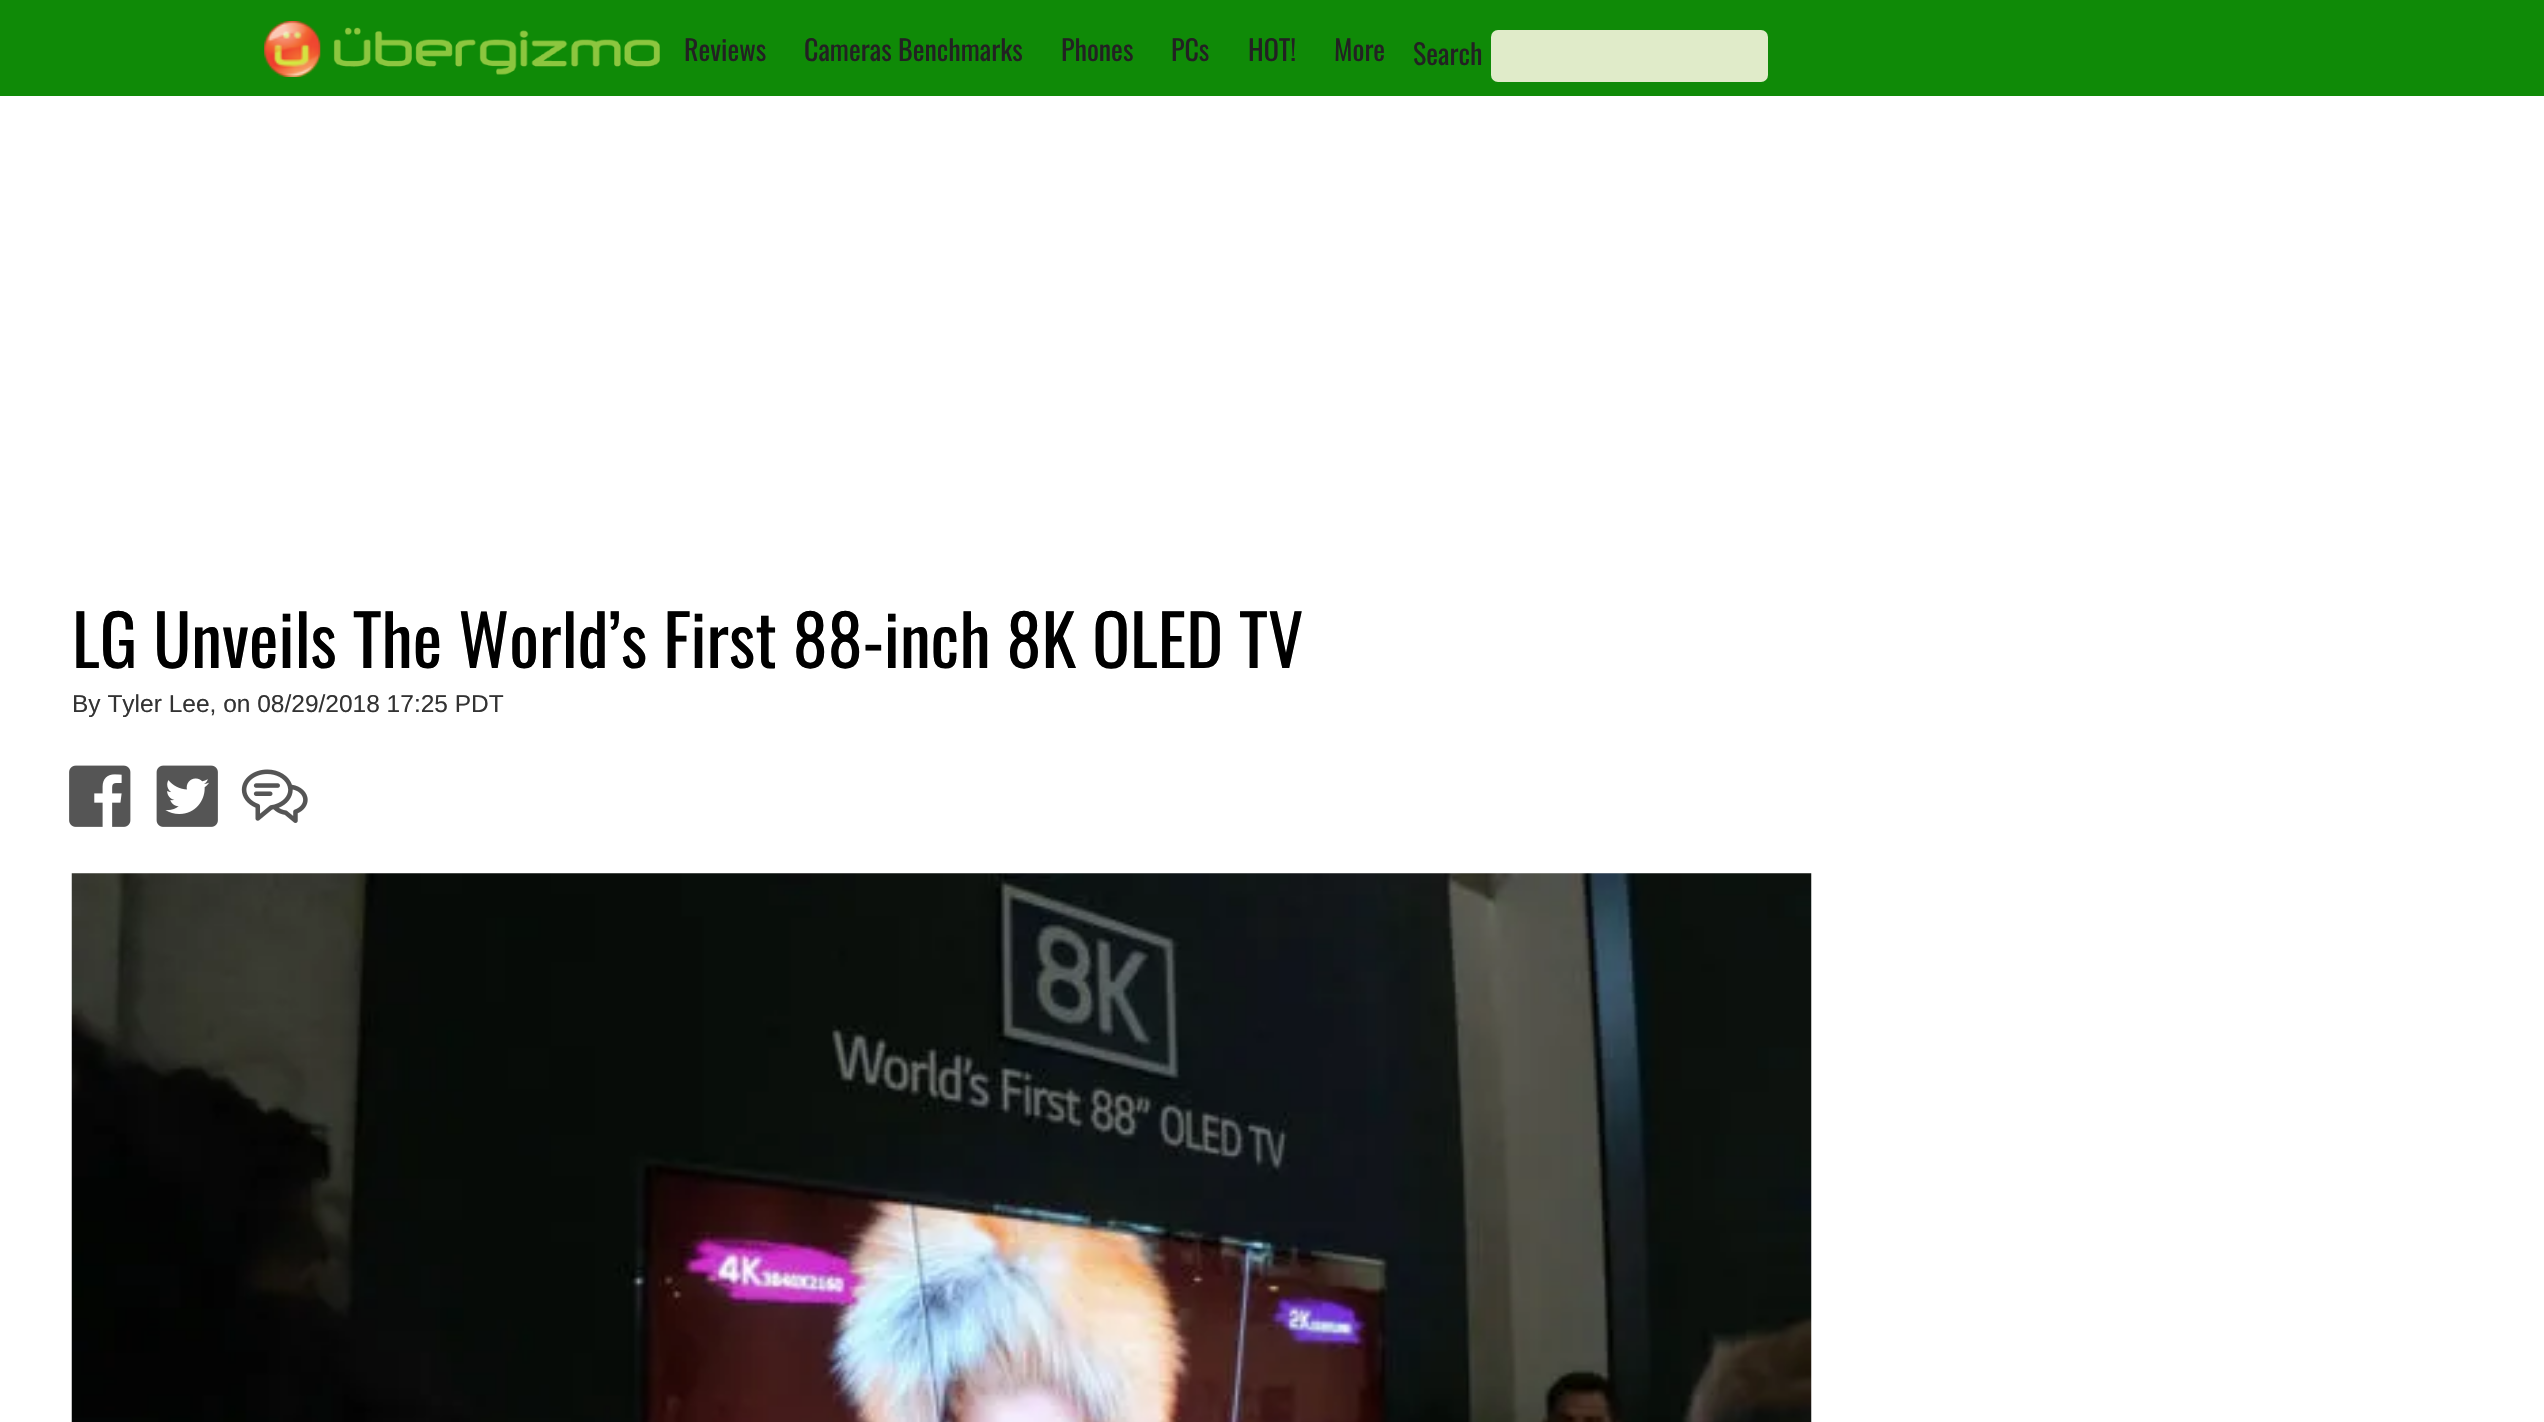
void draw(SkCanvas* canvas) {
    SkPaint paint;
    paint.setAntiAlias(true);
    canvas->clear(0xFFFFFFFF);
    paint.setColor(0xFF0F8A07);
    canvas->drawRect(SkRect::MakeXYWH(0, 0, 2544, 96), paint);
    canvas->drawImageRect(SkImages::DeferredFromEncodedData(SkData::MakeFromFileName("img1.png")), SkRect::MakeXYWH(264, 21, 57, 56), SkSamplingOptions());
    canvas->drawImageRect(SkImages::DeferredFromEncodedData(SkData::MakeFromFileName("img2.png")), SkRect::MakeXYWH(333, 27, 327, 48), SkSamplingOptions());
    SkFont font1(fontMgr->matchFamilyStyle("Oswald", SkFontStyle::Normal()), 28);
    font1.setSubpixel(true);
    paint.setColor(0xFF222222);
    canvas->drawString("Reviews", 684, 61, font1, paint);
    canvas->drawString("Cameras Benchmarks", 804, 61, font1, paint);
    canvas->drawString("Phones", 1061, 61, font1, paint);
    canvas->drawString("PCs", 1171, 61, font1, paint);
    canvas->drawString("HOT!", 1248, 61, font1, paint);
    canvas->drawString("More", 1334, 61, font1, paint);
    canvas->drawString("Search", 1413, 65, font1, paint);
    paint.setColor(0xFFE0EBC9);
    canvas->drawRoundRect(SkRect::MakeXYWH(1491, 30, 277, 52), 7, 7, paint);
    SkFont font2(fontMgr->matchFamilyStyle("Oswald", SkFontStyle::Normal()), 70);
    font2.setSubpixel(true);
    paint.setColor(0xFF000000);
    canvas->drawString("LG Unveils The World’s First 88-inch 8K OLED TV", 72, 668, font2, paint);
    SkFont font3(fontMgr->matchFamilyStyle("Liberation Sans", SkFontStyle::Normal()), 24.5f);
    font3.setSubpixel(true);
    paint.setColor(0xFF333333);
    canvas->drawString("By Tyler Lee, on 08/29/2018 17:25 PDT", 72, 712, font3, paint);
    canvas->drawImageRect(SkImages::DeferredFromEncodedData(SkData::MakeFromFileName("img3.png")), SkRect::MakeXYWH(69, 765, 62, 62), SkSamplingOptions());
    canvas->drawImageRect(SkImages::DeferredFromEncodedData(SkData::MakeFromFileName("img4.png")), SkRect::MakeXYWH(156, 765, 62, 62), SkSamplingOptions());
    canvas->drawImageRect(SkImages::DeferredFromEncodedData(SkData::MakeFromFileName("img5.png")), SkRect::MakeXYWH(241, 769, 67, 54), SkSamplingOptions());
    canvas->drawImageRect(SkImages::DeferredFromEncodedData(SkData::MakeFromFileName("img6.png")), SkRect::MakeXYWH(71, 873, 1741, 549), SkSamplingOptions());
}
